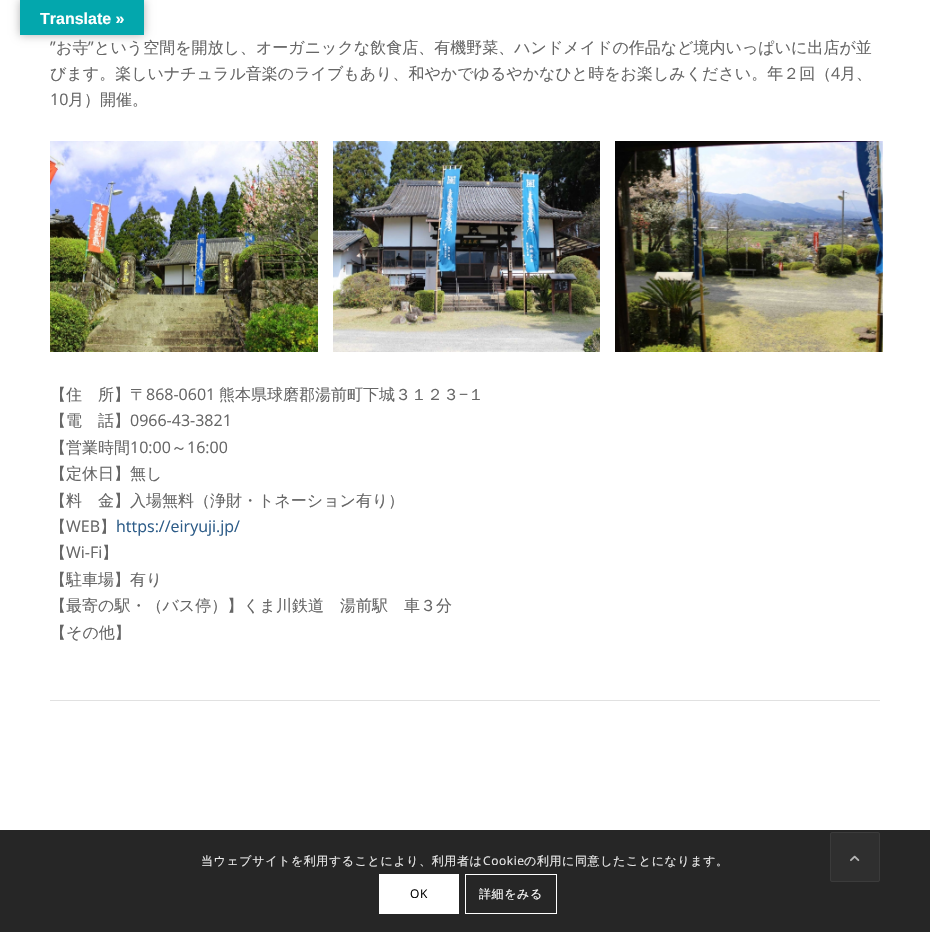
void draw(SkCanvas* canvas) {
    SkPaint paint;
    paint.setAntiAlias(true);
    auto spacedText = [&](const char* s, float x, float y, const SkFont& font, const SkPaint& ink, float letter, float word) {
        std::vector<SkGlyphID> glyphs(font.countText(s, strlen(s), SkTextEncoding::kUTF8));
        std::vector<float> xs(glyphs.size());
        font.textToGlyphs(s, strlen(s), SkTextEncoding::kUTF8, glyphs);
        font.getXPos(glyphs, xs, x);
        float extra = 0;
        for (size_t i = 0; i < glyphs.size(); i++) {
            xs[i] += extra;
            extra += letter + word * (glyphs[i] == font.unicharToGlyph(' '));
        }
        canvas->drawTextBlob(SkTextBlob::MakeFromPosHGlyphs(glyphs, xs, y, font), 0, 0, ink);
    };
    canvas->clear(0xFFFFFFFF);
    paint.setColor(0x4D000000);
    paint.setMaskFilter(SkMaskFilter::MakeBlur(kNormal_SkBlurStyle, 4.5f));
    canvas->drawRect(SkRect::MakeXYWH(20, 0, 124, 35), paint);
    paint.setMaskFilter(nullptr);
    paint.setColor(0xFF03A7AD);
    canvas->drawRect(SkRect::MakeXYWH(20, 0, 124, 35), paint);
    SkFont font1(fontMgr->matchFamilyStyle("Liberation Sans", SkFontStyle::Bold()), 16);
    font1.setSubpixel(true);
    paint.setColor(0xFFFFFFFF);
    canvas->drawString("Translate »", 40, 24, font1, paint);
    SkFont font2(fontMgr->matchFamilyStyle("Open Sans", SkFontStyle::Normal()), 16);
    font2.setSubpixel(true);
    paint.setColor(0xFF666666);
    canvas->drawString("”", 50, 53, font2, paint);
    SkFont font3(fontMgr->matchFamilyStyle("WenQuanYi Zen Hei", SkFontStyle(500, SkFontStyle::kNormal_Width, SkFontStyle::kUpright_Slant)), 16);
    font3.setSubpixel(true);
    canvas->drawString("お寺", 56, 53, font3, paint);
    canvas->drawString("”", 88, 53, font2, paint);
    canvas->drawString("という空間を開放し、オーガニックな飲食店、有機野菜、ハンドメイドの作品など境内いっぱいに出店が並", 94, 53, font3, paint);
    canvas->drawString("びます。楽しいナチュラル音楽のライブもあり、和やかでゆるやかなひと時をお楽しみください。年２回（", 50, 79, font3, paint);
    canvas->drawString("4", 831, 79, font2, paint);
    canvas->drawString("月、", 840, 79, font3, paint);
    canvas->drawString("10", 50, 105, font2, paint);
    canvas->drawString("月）開催。", 68, 105, font3, paint);
    canvas->drawImageRect(SkImages::DeferredFromEncodedData(SkData::MakeFromFileName("img1.png")), SkRect::MakeXYWH(50, 141, 268, 211), SkSamplingOptions());
    canvas->drawImageRect(SkImages::DeferredFromEncodedData(SkData::MakeFromFileName("img2.png")), SkRect::MakeXYWH(333, 141, 267, 211), SkSamplingOptions());
    canvas->drawImageRect(SkImages::DeferredFromEncodedData(SkData::MakeFromFileName("img3.png")), SkRect::MakeXYWH(615, 141, 268, 211), SkSamplingOptions());
    canvas->drawString("【住　所】〒", 50, 400, font3, paint);
    canvas->drawString("868-0601", 146, 400, font2, paint);
    canvas->drawString("熊本県球磨郡湯前町下城３１２３", 219, 400, font3, paint);
    canvas->drawString("−", 459, 400, font2, paint);
    canvas->drawString("１", 468, 400, font3, paint);
    canvas->drawString("【電　話】", 50, 426, font3, paint);
    canvas->drawString("0966-43-3821", 130, 426, font2, paint);
    canvas->drawString("【営業時間", 50, 453, font3, paint);
    canvas->drawString("10:00", 130, 453, font2, paint);
    canvas->drawString("～", 171, 453, font3, paint);
    canvas->drawString("16:00", 187, 453, font2, paint);
    canvas->drawString("【定休日】無し", 50, 479, font3, paint);
    canvas->drawString("【料　金】入場無料（浄財・トネーション有り）", 50, 506, font3, paint);
    canvas->drawString("【", 50, 532, font3, paint);
    canvas->drawString("WEB", 66, 532, font2, paint);
    canvas->drawString("】", 100, 532, font3, paint);
    paint.setColor(0xFF2D5C88);
    canvas->drawString("https://eiryuji.jp/", 116, 532, font2, paint);
    paint.setColor(0xFF666666);
    canvas->drawString("【", 50, 558, font3, paint);
    canvas->drawString("Wi-Fi", 66, 558, font2, paint);
    canvas->drawString("】", 102, 558, font3, paint);
    canvas->drawString("【駐車場】有り", 50, 585, font3, paint);
    canvas->drawString("【最寄の駅・（バス停）】くま川鉄道　湯前駅　車３分", 50, 611, font3, paint);
    canvas->drawString("【その他】", 50, 638, font3, paint);
    paint.setColor(0xFFE1E1E1);
    canvas->drawRect(SkRect::MakeXYWH(50, 700, 830, 1), paint);
    paint.setColor(0xFF262626);
    canvas->drawRect(SkRect::MakeXYWH(0, 830, 930, 102), paint);
    SkFont font4(fontMgr->matchFamilyStyle("WenQuanYi Zen Hei", SkFontStyle(500, SkFontStyle::kNormal_Width, SkFontStyle::kUpright_Slant)), 12);
    font4.setSubpixel(true);
    paint.setColor(0xFFE9E9E9);
    spacedText("当ウェブサイトを利用することにより、利用者は", 201, 865, font4, paint, 0.6f, 0);
    SkFont font5(fontMgr->matchFamilyStyle("Open Sans", SkFontStyle::Normal()), 12);
    font5.setSubpixel(true);
    spacedText("Cookie", 483, 865, font5, paint, 0.6f, 0);
    spacedText("の利用に同意したことになります。", 524, 865, font4, paint, 0.6f, 0);
    paint.setColor(0xFFFFFFFF);
    canvas->drawRect(SkRect::MakeXYWH(379, 874, 80, 40), paint);
    paint.setColor(0xFF000000);
    spacedText("OK", 410, 898, font5, paint, 0.6f, 0);
    paint.setStyle(SkPaint::kStroke_Style);
    paint.setStrokeWidth(1);
    paint.setColor(0xFFFFFFFF);
    canvas->drawRect(SkRect::MakeXYWH(465.5f, 874.5f, 91, 39), paint);
    paint.setStyle(SkPaint::kFill_Style);
    spacedText("詳細をみる", 479, 898, font4, paint, 0.6f, 0);
    paint.setColor(0xFF2F2F2F);
    canvas->drawRoundRect(SkRect::MakeXYWH(830.5f, 832.5f, 49, 49), 1.5f, 1.5f, paint);
    paint.setStyle(SkPaint::kStroke_Style);
    paint.setColor(0xFF3B3B3B);
    canvas->drawRoundRect(SkRect::MakeXYWH(830.5f, 832.5f, 49, 49), 1.5f, 1.5f, paint);
    canvas->drawImageRect(SkImages::DeferredFromEncodedData(SkData::MakeFromFileName("img4.png")), SkRect::MakeXYWH(850, 855, 10, 7), SkSamplingOptions());
}
